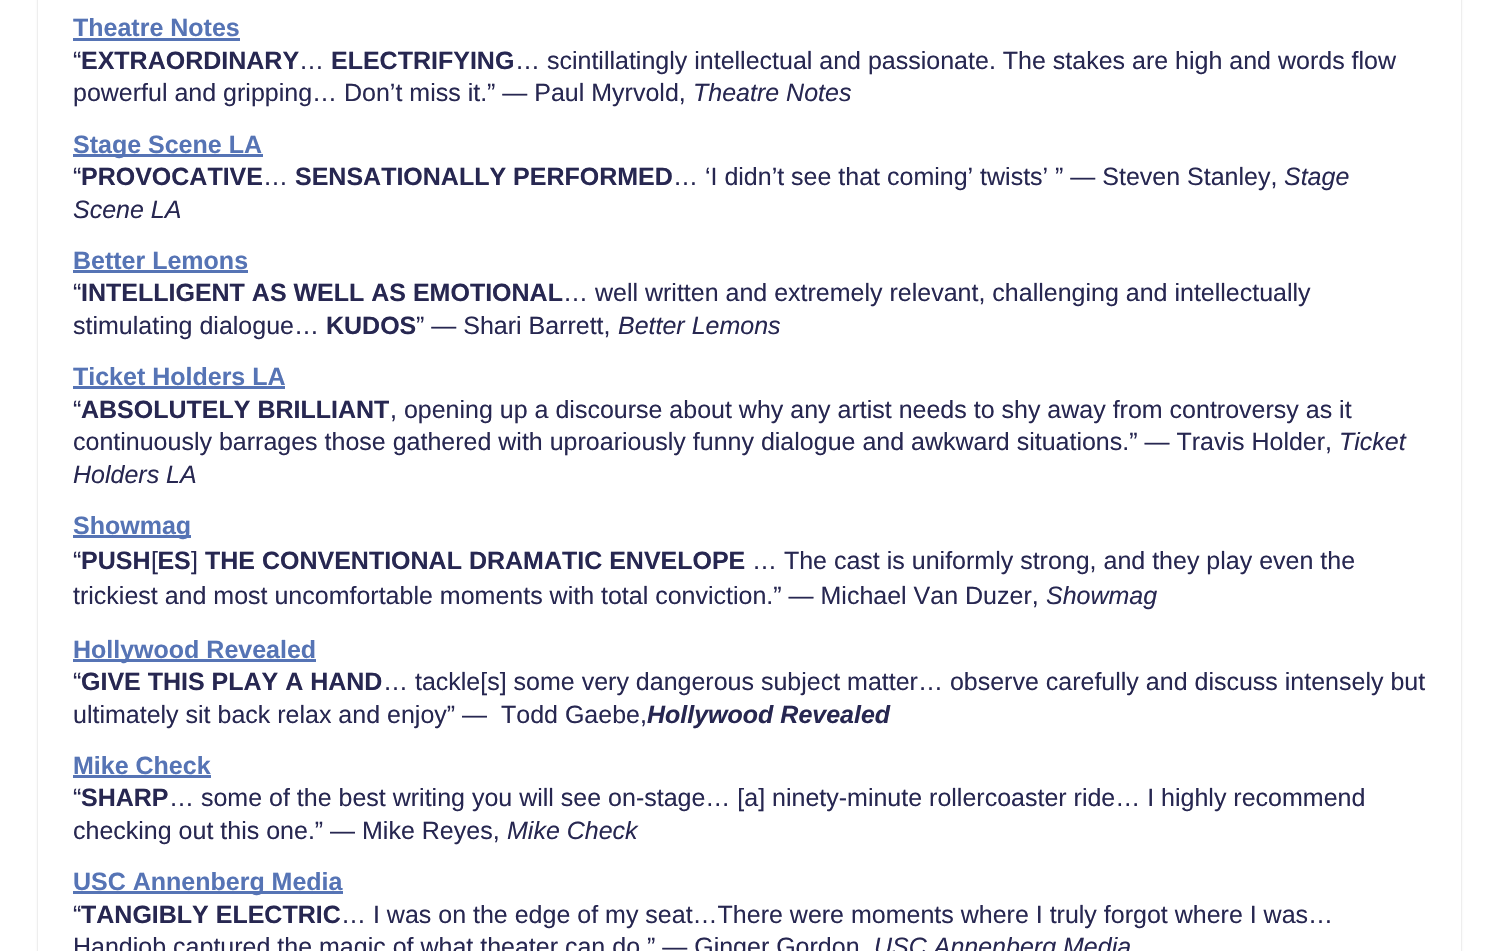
void draw(SkCanvas* canvas) {
    SkPaint paint;
    paint.setAntiAlias(true);
    canvas->clear(0xFFFFFFFF);
    canvas->save();
    canvas->clipPath(SkPathBuilder(SkPathFillType::kEvenOdd).moveTo(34, 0).lineTo(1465, 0).lineTo(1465, 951).lineTo(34, 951).close().moveTo(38, -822).lineTo(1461, -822).lineTo(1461, 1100).lineTo(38, 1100).close().detach(), true);
    paint.setColor(0x33000000);
    paint.setMaskFilter(SkMaskFilter::MakeBlur(kNormal_SkBlurStyle, 1));
    canvas->drawRect(SkRect::MakeXYWH(38, -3, 1423, 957), paint);
    paint.setMaskFilter(nullptr);
    canvas->restore();
    SkFont font1(fontMgr->matchFamilyStyle("Liberation Sans", SkFontStyle::Bold()), 25);
    font1.setSubpixel(true);
    paint.setColor(0xFF5674B5);
    canvas->drawString("Theatre Notes", 73, 36, font1, paint);
    canvas->drawRect(SkRect::MakeXYWH(73, 38, 167, 3), paint);
    SkFont font2(fontMgr->matchFamilyStyle("Liberation Sans", SkFontStyle::Normal()), 25);
    font2.setSubpixel(true);
    paint.setColor(0xFF272751);
    canvas->drawString("“", 73, 69, font2, paint);
    canvas->drawString("EXTRAORDINARY", 81, 69, font1, paint);
    canvas->drawString("…", 299, 69, font2, paint);
    canvas->drawString("ELECTRIFYING", 331, 69, font1, paint);
    canvas->drawString("… scintillatingly intellectual and passionate. The stakes are high and words flow", 515, 69, font2, paint);
    canvas->drawString("powerful and gripping… Don’t miss it.” — Paul Myrvold,", 73, 101, font2, paint);
    SkFont font3(fontMgr->matchFamilyStyle("Liberation Sans", SkFontStyle::Italic()), 25);
    font3.setSubpixel(true);
    canvas->drawString("Theatre Notes", 693, 101, font3, paint);
    paint.setColor(0xFF5674B5);
    canvas->drawRect(SkRect::MakeXYWH(73, 154, 190, 3), paint);
    canvas->drawString("Stage Scene LA", 73, 153, font1, paint);
    paint.setColor(0xFF272751);
    canvas->drawString("“", 73, 185, font2, paint);
    canvas->drawString("PROVOCATIVE", 81, 185, font1, paint);
    canvas->drawString("…", 263, 185, font2, paint);
    canvas->drawString("SENSATIONALLY PERFORMED", 295, 185, font1, paint);
    canvas->drawString("… ‘I didn’t see that coming’ twists’ ” — Steven Stanley,", 673, 185, font2, paint);
    canvas->drawString("Stage", 1284, 185, font3, paint);
    canvas->drawString("Scene LA", 73, 218, font3, paint);
    paint.setColor(0xFF5674B5);
    canvas->drawString("Better Lemons", 73, 269, font1, paint);
    canvas->drawRect(SkRect::MakeXYWH(73, 270, 175, 3), paint);
    paint.setColor(0xFF272751);
    canvas->drawString("“", 73, 301, font2, paint);
    canvas->drawString("INTELLIGENT AS WELL AS EMOTIONAL", 81, 301, font1, paint);
    canvas->drawString("… well written and extremely relevant, challenging and intellectually", 563, 301, font2, paint);
    canvas->drawString("stimulating dialogue…", 73, 334, font2, paint);
    canvas->drawString("KUDOS", 326, 334, font1, paint);
    canvas->drawString("” — Shari Barrett,", 416, 334, font2, paint);
    canvas->drawString("Better Lemons", 618, 334, font3, paint);
    paint.setColor(0xFF5674B5);
    canvas->drawString("Ticket Holders LA", 73, 385, font1, paint);
    canvas->drawRect(SkRect::MakeXYWH(73, 386, 212, 3), paint);
    paint.setColor(0xFF272751);
    canvas->drawString("“", 73, 418, font2, paint);
    canvas->drawString("ABSOLUTELY BRILLIANT", 81, 418, font1, paint);
    canvas->drawString(", opening up a discourse about why any artist needs to shy away from controversy as it", 390, 418, font2, paint);
    canvas->drawString("continuously barrages those gathered with uproariously funny dialogue and awkward situations.” — Travis Holder,", 73, 450, font2, paint);
    canvas->drawString("Ticket", 1339, 450, font3, paint);
    canvas->drawString("Holders LA", 73, 483, font3, paint);
    paint.setColor(0xFF5674B5);
    canvas->drawRect(SkRect::MakeXYWH(73, 535, 118, 3), paint);
    canvas->drawString("Showmag", 73, 534, font1, paint);
    paint.setColor(0xFF272751);
    canvas->drawString("“", 73, 569, font2, paint);
    canvas->drawString("PUSH ES", 81, 569, font1, paint);
    canvas->drawString("[", 151, 569, font2, paint);
    canvas->drawString("]", 191, 569, font2, paint);
    canvas->drawString("… The cast is uniformly strong, and they play even the", 752, 569, font2, paint);
    canvas->drawString("THE CONVENTIONAL DRAMATIC ENVELOPE", 205, 569, font1, paint);
    canvas->drawString("trickiest and most uncomfortable moments with total conviction.” — Michael Van Duzer,", 73, 604, font2, paint);
    canvas->drawString("Showmag", 1046, 604, font3, paint);
    paint.setColor(0xFF5674B5);
    canvas->drawRect(SkRect::MakeXYWH(73, 659, 243, 3), paint);
    canvas->drawString("Hollywood Revealed", 73, 658, font1, paint);
    paint.setColor(0xFF272751);
    canvas->drawString("“", 73, 690, font2, paint);
    canvas->drawString("GIVE THIS PLAY A HAND", 81, 690, font1, paint);
    canvas->drawString("… tackle[s] some very dangerous subject matter… observe carefully and discuss intensely but", 383, 690, font2, paint);
    canvas->drawString("ultimately sit back relax and enjoy” —  Todd Gaebe,", 73, 723, font2, paint);
    SkFont font4(fontMgr->matchFamilyStyle("Liberation Sans", SkFontStyle::BoldItalic()), 25);
    font4.setSubpixel(true);
    canvas->drawString("Hollywood Revealed", 647, 723, font4, paint);
    paint.setColor(0xFF5674B5);
    canvas->drawString("Mike Check", 73, 774, font1, paint);
    canvas->drawRect(SkRect::MakeXYWH(73, 775, 138, 3), paint);
    paint.setColor(0xFF272751);
    canvas->drawString("“", 73, 806, font2, paint);
    canvas->drawString("SHARP", 81, 806, font1, paint);
    canvas->drawString("… some of the best writing you will see on-stage… [a] ninety-minute rollercoaster ride… I highly recommend", 169, 806, font2, paint);
    canvas->drawString("checking out this one.” — Mike Reyes,", 73, 839, font2, paint);
    canvas->drawString("Mike Check", 507, 839, font3, paint);
    paint.setColor(0xFF5674B5);
    canvas->drawRect(SkRect::MakeXYWH(73, 891, 270, 3), paint);
    canvas->drawString("USC Annenberg Media", 73, 890, font1, paint);
    paint.setColor(0xFF272751);
    canvas->drawString("“", 73, 923, font2, paint);
    canvas->drawString("TANGIBLY ELECTRIC", 81, 923, font1, paint);
    canvas->drawString("… I was on the edge of my seat…There were moments where I truly forgot where I was…", 341, 923, font2, paint);
    canvas->drawString("Handjob captured the magic of what theater can do.” — Ginger Gordon", 73, 955, font2, paint);
    canvas->drawString("USC Annenberg Media", 874, 955, font3, paint);
}
